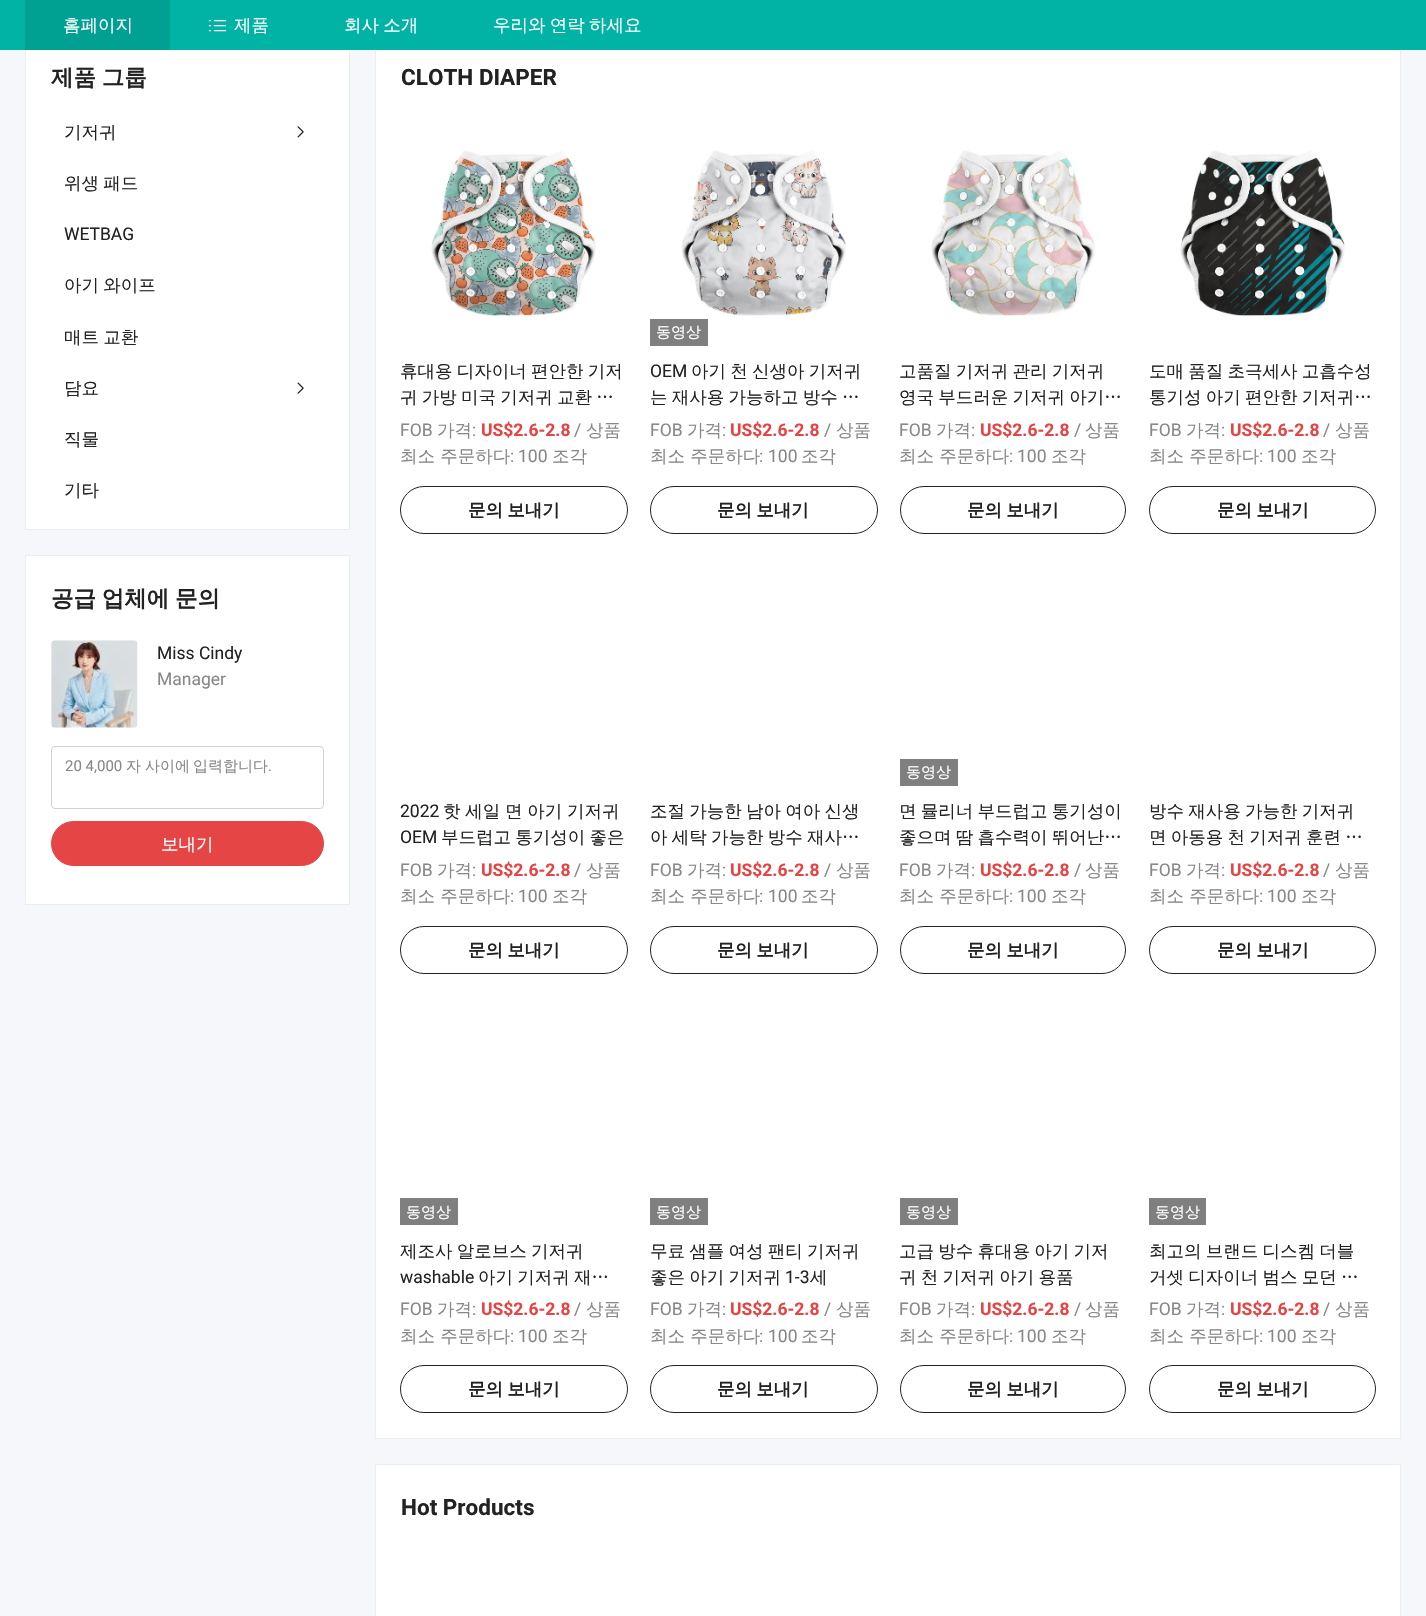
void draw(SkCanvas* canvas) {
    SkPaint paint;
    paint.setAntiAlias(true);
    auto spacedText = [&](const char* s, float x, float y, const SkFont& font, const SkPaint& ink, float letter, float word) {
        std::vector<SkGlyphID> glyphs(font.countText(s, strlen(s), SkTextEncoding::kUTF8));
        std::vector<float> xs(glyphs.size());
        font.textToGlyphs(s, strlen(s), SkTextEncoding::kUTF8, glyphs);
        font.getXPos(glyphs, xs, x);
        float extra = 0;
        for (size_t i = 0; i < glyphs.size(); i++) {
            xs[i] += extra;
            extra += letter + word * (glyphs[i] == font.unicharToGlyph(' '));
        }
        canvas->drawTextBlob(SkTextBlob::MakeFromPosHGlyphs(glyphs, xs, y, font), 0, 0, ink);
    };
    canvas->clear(0xFFF5F7FA);
    paint.setColor(0xFFFFFFFF);
    canvas->drawRect(SkRect::MakeXYWH(26, 50, 323, 479), paint);
    paint.setStyle(SkPaint::kStroke_Style);
    paint.setStrokeWidth(1);
    paint.setColor(0xFFE9EEF4);
    canvas->drawRect(SkRect::MakeXYWH(25.5f, 34.5f, 324, 495), paint);
    paint.setStyle(SkPaint::kFill_Style);
    paint.setColor(0xFFFFFFFF);
    canvas->drawRect(SkRect::MakeXYWH(376, 50, 1024, 1388), paint);
    paint.setStyle(SkPaint::kStroke_Style);
    paint.setColor(0xFFE9EEF4);
    canvas->drawRect(SkRect::MakeXYWH(375.5f, 34.5f, 1025, 1404), paint);
    paint.setStyle(SkPaint::kFill_Style);
    paint.setColor(0xFF00B3A4);
    canvas->drawRect(SkRect::MakeXYWH(0, 0, 1426, 50), paint);
    paint.setColor(0xFF00A193);
    canvas->drawRect(SkRect::MakeXYWH(25, 0, 145, 50), paint);
    SkFont font1(fontMgr->matchFamilyStyle("WenQuanYi Zen Hei", SkFontStyle(500, SkFontStyle::kNormal_Width, SkFontStyle::kUpright_Slant)), 17.5f);
    font1.setSubpixel(true);
    paint.setColor(0xFFFFFFFF);
    canvas->drawString("홈페이지", 63, 31, font1, paint);
    canvas->drawImageRect(SkImages::DeferredFromEncodedData(SkData::MakeFromFileName("img1.png")), SkRect::MakeXYWH(208, 20, 19, 12), SkSamplingOptions());
    canvas->drawString("제품", 234, 31, font1, paint);
    spacedText("회사 소개", 344, 31, font1, paint, 0, -1);
    spacedText("우리와 연락 하세요", 493, 31, font1, paint, 0, -1);
    SkFont font2(fontMgr->matchFamilyStyle("WenQuanYi Zen Hei", SkFontStyle::Bold()), 22.5f);
    font2.setSubpixel(true);
    paint.setColor(0xFF222222);
    spacedText("제품 그룹", 51, 85, font2, paint, 0, -1);
    canvas->drawString("기저귀", 64, 138, font1, paint);
    canvas->drawImageRect(SkImages::DeferredFromEncodedData(SkData::MakeFromFileName("img2.png")), SkRect::MakeXYWH(297, 126, 7, 12), SkSamplingOptions());
    spacedText("위생 패드", 64, 189, font1, paint, 0, -1);
    SkFont font3(fontMgr->matchFamilyStyle("Roboto", SkFontStyle::Normal()), 17.5f);
    font3.setSubpixel(true);
    canvas->drawString("WETBAG", 64, 240, font3, paint);
    spacedText("아기 와이프", 64, 291, font1, paint, 0, -1);
    spacedText("매트 교환", 64, 343, font1, paint, 0, -1);
    canvas->drawString("담요", 64, 394, font1, paint);
    canvas->drawImageRect(SkImages::DeferredFromEncodedData(SkData::MakeFromFileName("img3.png")), SkRect::MakeXYWH(297, 382, 7, 12), SkSamplingOptions());
    canvas->drawString("직물", 64, 445, font1, paint);
    canvas->drawString("기타", 64, 496, font1, paint);
    paint.setColor(0xFFFFFFFF);
    canvas->drawRect(SkRect::MakeXYWH(25.5f, 555.5f, 324, 349), paint);
    paint.setStyle(SkPaint::kStroke_Style);
    paint.setColor(0xFFE9EEF4);
    canvas->drawRect(SkRect::MakeXYWH(25.5f, 555.5f, 324, 349), paint);
    paint.setStyle(SkPaint::kFill_Style);
    paint.setColor(0xFF222222);
    spacedText("공급 업체에 문의", 51, 606, font2, paint, 0, -1);
    canvas->drawImageRect(SkImages::DeferredFromEncodedData(SkData::MakeFromFileName("img4.png")), SkRect::MakeXYWH(51, 640, 87, 88), SkSamplingOptions());
    canvas->drawString("Miss Cindy", 157, 659, font3, paint);
    paint.setColor(0xFF888888);
    canvas->drawString("Manager", 157, 685, font3, paint);
    paint.setStyle(SkPaint::kStroke_Style);
    paint.setColor(0xFFCED3D9);
    canvas->drawRoundRect(SkRect::MakeXYWH(51.5f, 746.5f, 272, 62), 3.5f, 3.5f, paint);
    SkFont font4(fontMgr->matchFamilyStyle("Roboto", SkFontStyle::Normal()), 15);
    font4.setSubpixel(true);
    paint.setStyle(SkPaint::kFill_Style);
    paint.setColor(0xFF888888);
    canvas->drawString("20 4,000", 65, 771, font4, paint);
    SkFont font5(fontMgr->matchFamilyStyle("WenQuanYi Zen Hei", SkFontStyle(500, SkFontStyle::kNormal_Width, SkFontStyle::kUpright_Slant)), 15);
    font5.setSubpixel(true);
    canvas->drawString("자", 126, 771, font5, paint);
    canvas->drawString("사이에", 145, 771, font5, paint);
    canvas->drawString("입력합니다", 193, 771, font5, paint);
    canvas->drawString(".", 268, 771, font4, paint);
    paint.setColor(0xFFE64545);
    canvas->drawRoundRect(SkRect::MakeXYWH(51.5f, 821.5f, 272, 44), 22, 22, paint);
    paint.setStyle(SkPaint::kStroke_Style);
    canvas->drawRoundRect(SkRect::MakeXYWH(51.5f, 821.5f, 272, 44), 22, 22, paint);
    paint.setStyle(SkPaint::kFill_Style);
    paint.setColor(0xFFFFFFFF);
    canvas->drawString("보내기", 161, 850, font1, paint);
    SkFont font6(fontMgr->matchFamilyStyle("Roboto", SkFontStyle::Bold()), 22.5f);
    font6.setSubpixel(true);
    paint.setColor(0xFF222222);
    canvas->drawString("CLOTH DIAPER", 401, 85, font6, paint);
    canvas->drawImageRect(SkImages::DeferredFromEncodedData(SkData::MakeFromFileName("img5.png")), SkRect::MakeXYWH(431, 150, 165, 167), SkSamplingOptions());
    spacedText("휴대용 디자이너 편안한 기저", 400, 377, font1, paint, 0, -1);
    spacedText("귀 가방 미국 기저귀 교환 …", 400, 403, font1, paint, 0, -1);
    paint.setColor(0xFF888888);
    canvas->drawString("FOB", 400, 436, font3, paint);
    canvas->drawString("가격", 437, 436, font1, paint);
    canvas->drawString(":", 472, 436, font3, paint);
    SkFont font7(fontMgr->matchFamilyStyle("Roboto", SkFontStyle::Bold()), 17.5f);
    font7.setSubpixel(true);
    paint.setColor(0xFFE64545);
    canvas->drawString("US$2.6-2.8", 481, 436, font7, paint);
    paint.setColor(0xFF888888);
    canvas->drawString("/", 574, 436, font3, paint);
    canvas->drawString("상품", 586, 436, font1, paint);
    canvas->drawString("최소 주문하다", 400, 462, font1, paint);
    canvas->drawString(":", 510, 462, font3, paint);
    canvas->drawString("100", 518, 462, font3, paint);
    canvas->drawString("조각", 552, 462, font1, paint);
    paint.setStyle(SkPaint::kStroke_Style);
    paint.setColor(0xFF222222);
    canvas->drawRoundRect(SkRect::MakeXYWH(400.5f, 486.5f, 227, 47), 23.5f, 23.5f, paint);
    SkFont font8(fontMgr->matchFamilyStyle("WenQuanYi Zen Hei", SkFontStyle::Bold()), 17.5f);
    font8.setSubpixel(true);
    paint.setStyle(SkPaint::kFill_Style);
    spacedText("문의 보내기", 468, 516, font8, paint, 0, -1);
    canvas->drawImageRect(SkImages::DeferredFromEncodedData(SkData::MakeFromFileName("img6.png")), SkRect::MakeXYWH(681, 150, 165, 166), SkSamplingOptions());
    paint.setColor(0xFF7F7F7F);
    canvas->drawRect(SkRect::MakeXYWH(650, 319, 58, 27), paint);
    paint.setColor(0xFFFFFFFF);
    canvas->drawString("동영상", 656, 337, font5, paint);
    paint.setColor(0xFF222222);
    canvas->drawString("OEM", 650, 377, font3, paint);
    spacedText("아기 천 신생아 기저귀", 691, 377, font1, paint, 0, -1);
    spacedText("는 재사용 가능하고 방수 …", 650, 403, font1, paint, 0, -1);
    paint.setColor(0xFF888888);
    canvas->drawString("FOB", 650, 436, font3, paint);
    canvas->drawString("가격", 687, 436, font1, paint);
    canvas->drawString(":", 722, 436, font3, paint);
    paint.setColor(0xFFE64545);
    canvas->drawString("US$2.6-2.8", 730, 436, font7, paint);
    paint.setColor(0xFF888888);
    canvas->drawString("/", 824, 436, font3, paint);
    canvas->drawString("상품", 836, 436, font1, paint);
    canvas->drawString("최소 주문하다", 650, 462, font1, paint);
    canvas->drawString(":", 759, 462, font3, paint);
    canvas->drawString("100", 768, 462, font3, paint);
    canvas->drawString("조각", 801, 462, font1, paint);
    paint.setStyle(SkPaint::kStroke_Style);
    paint.setColor(0xFF222222);
    canvas->drawRoundRect(SkRect::MakeXYWH(650.5f, 486.5f, 227, 47), 23.5f, 23.5f, paint);
    paint.setStyle(SkPaint::kFill_Style);
    spacedText("문의 보내기", 717, 516, font8, paint, 0, -1);
    canvas->drawImageRect(SkImages::DeferredFromEncodedData(SkData::MakeFromFileName("img7.png")), SkRect::MakeXYWH(931, 150, 164, 167), SkSamplingOptions());
    spacedText("고품질 기저귀 관리 기저귀", 899, 377, font1, paint, 0, -1);
    spacedText("영국 부드러운 기저귀 아기…", 899, 403, font1, paint, 0, -1);
    paint.setColor(0xFF888888);
    canvas->drawString("FOB", 899, 436, font3, paint);
    canvas->drawString("가격", 936, 436, font1, paint);
    canvas->drawString(":", 971, 436, font3, paint);
    paint.setColor(0xFFE64545);
    canvas->drawString("US$2.6-2.8", 980, 436, font7, paint);
    paint.setColor(0xFF888888);
    canvas->drawString("/", 1074, 436, font3, paint);
    canvas->drawString("상품", 1085, 436, font1, paint);
    canvas->drawString("최소 주문하다", 899, 462, font1, paint);
    canvas->drawString(":", 1009, 462, font3, paint);
    canvas->drawString("100", 1017, 462, font3, paint);
    canvas->drawString("조각", 1051, 462, font1, paint);
    paint.setStyle(SkPaint::kStroke_Style);
    paint.setColor(0xFF222222);
    canvas->drawRoundRect(SkRect::MakeXYWH(900.5f, 486.5f, 225, 47), 23.5f, 23.5f, paint);
    paint.setStyle(SkPaint::kFill_Style);
    spacedText("문의 보내기", 967, 516, font8, paint, 0, -1);
    canvas->drawImageRect(SkImages::DeferredFromEncodedData(SkData::MakeFromFileName("img8.png")), SkRect::MakeXYWH(1180, 150, 165, 167), SkSamplingOptions());
    spacedText("도매 품질 초극세사 고흡수성", 1149, 377, font1, paint, 0, -1);
    spacedText("통기성 아기 편안한 기저귀…", 1149, 403, font1, paint, 0, -1);
    paint.setColor(0xFF888888);
    canvas->drawString("FOB", 1149, 436, font3, paint);
    canvas->drawString("가격", 1186, 436, font1, paint);
    canvas->drawString(":", 1221, 436, font3, paint);
    paint.setColor(0xFFE64545);
    canvas->drawString("US$2.6-2.8", 1230, 436, font7, paint);
    paint.setColor(0xFF888888);
    canvas->drawString("/", 1323, 436, font3, paint);
    canvas->drawString("상품", 1335, 436, font1, paint);
    canvas->drawString("최소 주문하다", 1149, 462, font1, paint);
    canvas->drawString(":", 1259, 462, font3, paint);
    canvas->drawString("100", 1267, 462, font3, paint);
    canvas->drawString("조각", 1301, 462, font1, paint);
    paint.setStyle(SkPaint::kStroke_Style);
    paint.setColor(0xFF222222);
    canvas->drawRoundRect(SkRect::MakeXYWH(1149.5f, 486.5f, 226, 47), 23.5f, 23.5f, paint);
    paint.setStyle(SkPaint::kFill_Style);
    spacedText("문의 보내기", 1217, 516, font8, paint, 0, -1);
    canvas->drawString("2022", 400, 817, font3, paint);
    spacedText("핫 세일 면 아기 기저귀", 443, 817, font1, paint, 0, -0.5f);
    canvas->drawString("OEM", 400, 843, font3, paint);
    spacedText("부드럽고 통기성이 좋은", 441, 843, font1, paint, 0, -1);
    paint.setColor(0xFF888888);
    canvas->drawString("FOB", 400, 876, font3, paint);
    canvas->drawString("가격", 437, 876, font1, paint);
    canvas->drawString(":", 472, 876, font3, paint);
    paint.setColor(0xFFE64545);
    canvas->drawString("US$2.6-2.8", 481, 876, font7, paint);
    paint.setColor(0xFF888888);
    canvas->drawString("/", 574, 876, font3, paint);
    canvas->drawString("상품", 586, 876, font1, paint);
    canvas->drawString("최소 주문하다", 400, 902, font1, paint);
    canvas->drawString(":", 510, 902, font3, paint);
    canvas->drawString("100", 518, 902, font3, paint);
    canvas->drawString("조각", 552, 902, font1, paint);
    paint.setStyle(SkPaint::kStroke_Style);
    paint.setColor(0xFF222222);
    canvas->drawRoundRect(SkRect::MakeXYWH(400.5f, 926.5f, 227, 47), 23.5f, 23.5f, paint);
    paint.setStyle(SkPaint::kFill_Style);
    spacedText("문의 보내기", 468, 956, font8, paint, 0, -1);
    spacedText("조절 가능한 남아 여아 신생", 650, 817, font1, paint, 0, -1);
    spacedText("아 세탁 가능한 방수 재사…", 650, 843, font1, paint, 0, -1);
    paint.setColor(0xFF888888);
    canvas->drawString("FOB", 650, 876, font3, paint);
    canvas->drawString("가격", 687, 876, font1, paint);
    canvas->drawString(":", 722, 876, font3, paint);
    paint.setColor(0xFFE64545);
    canvas->drawString("US$2.6-2.8", 730, 876, font7, paint);
    paint.setColor(0xFF888888);
    canvas->drawString("/", 824, 876, font3, paint);
    canvas->drawString("상품", 836, 876, font1, paint);
    canvas->drawString("최소 주문하다", 650, 902, font1, paint);
    canvas->drawString(":", 759, 902, font3, paint);
    canvas->drawString("100", 768, 902, font3, paint);
    canvas->drawString("조각", 801, 902, font1, paint);
    paint.setStyle(SkPaint::kStroke_Style);
    paint.setColor(0xFF222222);
    canvas->drawRoundRect(SkRect::MakeXYWH(650.5f, 926.5f, 227, 47), 23.5f, 23.5f, paint);
    paint.setStyle(SkPaint::kFill_Style);
    spacedText("문의 보내기", 717, 956, font8, paint, 0, -1);
    paint.setColor(0xFF7F7F7F);
    canvas->drawRect(SkRect::MakeXYWH(900, 759, 58, 27), paint);
    paint.setColor(0xFFFFFFFF);
    canvas->drawString("동영상", 906, 777, font5, paint);
    paint.setColor(0xFF222222);
    spacedText("면 뮬리너 부드럽고 통기성이", 899, 817, font1, paint, 0, -1);
    spacedText("좋으며 땀 흡수력이 뛰어난…", 899, 843, font1, paint, 0, -1);
    paint.setColor(0xFF888888);
    canvas->drawString("FOB", 899, 876, font3, paint);
    canvas->drawString("가격", 936, 876, font1, paint);
    canvas->drawString(":", 971, 876, font3, paint);
    paint.setColor(0xFFE64545);
    canvas->drawString("US$2.6-2.8", 980, 876, font7, paint);
    paint.setColor(0xFF888888);
    canvas->drawString("/", 1074, 876, font3, paint);
    canvas->drawString("상품", 1085, 876, font1, paint);
    canvas->drawString("최소 주문하다", 899, 902, font1, paint);
    canvas->drawString(":", 1009, 902, font3, paint);
    canvas->drawString("100", 1017, 902, font3, paint);
    canvas->drawString("조각", 1051, 902, font1, paint);
    paint.setStyle(SkPaint::kStroke_Style);
    paint.setColor(0xFF222222);
    canvas->drawRoundRect(SkRect::MakeXYWH(900.5f, 926.5f, 225, 47), 23.5f, 23.5f, paint);
    paint.setStyle(SkPaint::kFill_Style);
    spacedText("문의 보내기", 967, 956, font8, paint, 0, -1);
    spacedText("방수 재사용 가능한 기저귀", 1149, 817, font1, paint, 0, -1);
    spacedText("면 아동용 천 기저귀 훈련 …", 1149, 843, font1, paint, 0, -1);
    paint.setColor(0xFF888888);
    canvas->drawString("FOB", 1149, 876, font3, paint);
    canvas->drawString("가격", 1186, 876, font1, paint);
    canvas->drawString(":", 1221, 876, font3, paint);
    paint.setColor(0xFFE64545);
    canvas->drawString("US$2.6-2.8", 1230, 876, font7, paint);
    paint.setColor(0xFF888888);
    canvas->drawString("/", 1323, 876, font3, paint);
    canvas->drawString("상품", 1335, 876, font1, paint);
    canvas->drawString("최소 주문하다", 1149, 902, font1, paint);
    canvas->drawString(":", 1259, 902, font3, paint);
    canvas->drawString("100", 1267, 902, font3, paint);
    canvas->drawString("조각", 1301, 902, font1, paint);
    paint.setStyle(SkPaint::kStroke_Style);
    paint.setColor(0xFF222222);
    canvas->drawRoundRect(SkRect::MakeXYWH(1149.5f, 926.5f, 226, 47), 23.5f, 23.5f, paint);
    paint.setStyle(SkPaint::kFill_Style);
    spacedText("문의 보내기", 1217, 956, font8, paint, 0, -1);
    paint.setColor(0xFF7F7F7F);
    canvas->drawRect(SkRect::MakeXYWH(400, 1198, 58, 27), paint);
    paint.setColor(0xFFFFFFFF);
    canvas->drawString("동영상", 406, 1217, font5, paint);
    paint.setColor(0xFF222222);
    spacedText("제조사 알로브스 기저귀", 400, 1257, font1, paint, 0, -1);
    canvas->drawString("washable", 400, 1283, font3, paint);
    spacedText("아기 기저귀 재…", 478, 1283, font1, paint, 0, -1);
    paint.setColor(0xFF888888);
    canvas->drawString("FOB", 400, 1315, font3, paint);
    canvas->drawString("가격", 437, 1315, font1, paint);
    canvas->drawString(":", 472, 1315, font3, paint);
    paint.setColor(0xFFE64545);
    canvas->drawString("US$2.6-2.8", 481, 1315, font7, paint);
    paint.setColor(0xFF888888);
    canvas->drawString("/", 574, 1315, font3, paint);
    canvas->drawString("상품", 586, 1315, font1, paint);
    canvas->drawString("최소 주문하다", 400, 1342, font1, paint);
    canvas->drawString(":", 510, 1342, font3, paint);
    canvas->drawString("100", 518, 1342, font3, paint);
    canvas->drawString("조각", 552, 1342, font1, paint);
    paint.setStyle(SkPaint::kStroke_Style);
    paint.setColor(0xFF222222);
    canvas->drawRoundRect(SkRect::MakeXYWH(400.5f, 1365.5f, 227, 47), 23.5f, 23.5f, paint);
    paint.setStyle(SkPaint::kFill_Style);
    spacedText("문의 보내기", 468, 1395, font8, paint, 0, -1);
    paint.setColor(0xFF7F7F7F);
    canvas->drawRect(SkRect::MakeXYWH(650, 1198, 58, 27), paint);
    paint.setColor(0xFFFFFFFF);
    canvas->drawString("동영상", 656, 1217, font5, paint);
    paint.setColor(0xFF222222);
    spacedText("무료 샘플 여성 팬티 기저귀", 650, 1257, font1, paint, 0, -1);
    spacedText("좋은 아기 기저귀", 650, 1283, font1, paint, 0, -1);
    canvas->drawString("1-3", 785, 1283, font3, paint);
    canvas->drawString("세", 810, 1283, font1, paint);
    paint.setColor(0xFF888888);
    canvas->drawString("FOB", 650, 1315, font3, paint);
    canvas->drawString("가격", 687, 1315, font1, paint);
    canvas->drawString(":", 722, 1315, font3, paint);
    paint.setColor(0xFFE64545);
    canvas->drawString("US$2.6-2.8", 730, 1315, font7, paint);
    paint.setColor(0xFF888888);
    canvas->drawString("/", 824, 1315, font3, paint);
    canvas->drawString("상품", 836, 1315, font1, paint);
    canvas->drawString("최소 주문하다", 650, 1342, font1, paint);
    canvas->drawString(":", 759, 1342, font3, paint);
    canvas->drawString("100", 768, 1342, font3, paint);
    canvas->drawString("조각", 801, 1342, font1, paint);
    paint.setStyle(SkPaint::kStroke_Style);
    paint.setColor(0xFF222222);
    canvas->drawRoundRect(SkRect::MakeXYWH(650.5f, 1365.5f, 227, 47), 23.5f, 23.5f, paint);
    paint.setStyle(SkPaint::kFill_Style);
    spacedText("문의 보내기", 717, 1395, font8, paint, 0, -1);
    paint.setColor(0xFF7F7F7F);
    canvas->drawRect(SkRect::MakeXYWH(900, 1198, 58, 27), paint);
    paint.setColor(0xFFFFFFFF);
    canvas->drawString("동영상", 906, 1217, font5, paint);
    paint.setColor(0xFF222222);
    spacedText("고급 방수 휴대용 아기 기저", 899, 1257, font1, paint, 0, -1);
    spacedText("귀 천 기저귀 아기 용품", 899, 1283, font1, paint, 0, -1);
    paint.setColor(0xFF888888);
    canvas->drawString("FOB", 899, 1315, font3, paint);
    canvas->drawString("가격", 936, 1315, font1, paint);
    canvas->drawString(":", 971, 1315, font3, paint);
    paint.setColor(0xFFE64545);
    canvas->drawString("US$2.6-2.8", 980, 1315, font7, paint);
    paint.setColor(0xFF888888);
    canvas->drawString("/", 1074, 1315, font3, paint);
    canvas->drawString("상품", 1085, 1315, font1, paint);
    canvas->drawString("최소 주문하다", 899, 1342, font1, paint);
    canvas->drawString(":", 1009, 1342, font3, paint);
    canvas->drawString("100", 1017, 1342, font3, paint);
    canvas->drawString("조각", 1051, 1342, font1, paint);
    paint.setStyle(SkPaint::kStroke_Style);
    paint.setColor(0xFF222222);
    canvas->drawRoundRect(SkRect::MakeXYWH(900.5f, 1365.5f, 225, 47), 23.5f, 23.5f, paint);
    paint.setStyle(SkPaint::kFill_Style);
    spacedText("문의 보내기", 967, 1395, font8, paint, 0, -1);
    paint.setColor(0xFF7F7F7F);
    canvas->drawRect(SkRect::MakeXYWH(1149, 1198, 57, 27), paint);
    paint.setColor(0xFFFFFFFF);
    canvas->drawString("동영상", 1155, 1217, font5, paint);
    paint.setColor(0xFF222222);
    spacedText("최고의 브랜드 디스켐 더블", 1149, 1257, font1, paint, 0, -1);
    spacedText("거셋 디자이너 범스 모던 …", 1149, 1283, font1, paint, 0, -1);
    paint.setColor(0xFF888888);
    canvas->drawString("FOB", 1149, 1315, font3, paint);
    canvas->drawString("가격", 1186, 1315, font1, paint);
    canvas->drawString(":", 1221, 1315, font3, paint);
    paint.setColor(0xFFE64545);
    canvas->drawString("US$2.6-2.8", 1230, 1315, font7, paint);
    paint.setColor(0xFF888888);
    canvas->drawString("/", 1323, 1315, font3, paint);
    canvas->drawString("상품", 1335, 1315, font1, paint);
    canvas->drawString("최소 주문하다", 1149, 1342, font1, paint);
    canvas->drawString(":", 1259, 1342, font3, paint);
    canvas->drawString("100", 1267, 1342, font3, paint);
    canvas->drawString("조각", 1301, 1342, font1, paint);
    paint.setStyle(SkPaint::kStroke_Style);
    paint.setColor(0xFF222222);
    canvas->drawRoundRect(SkRect::MakeXYWH(1149.5f, 1365.5f, 226, 47), 23.5f, 23.5f, paint);
    paint.setStyle(SkPaint::kFill_Style);
    spacedText("문의 보내기", 1217, 1395, font8, paint, 0, -1);
    paint.setColor(0xFFFFFFFF);
    canvas->drawRect(SkRect::MakeXYWH(375.5f, 1464.5f, 1025, 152), paint);
    paint.setStyle(SkPaint::kStroke_Style);
    paint.setColor(0xFFE9EEF4);
    canvas->drawRect(SkRect::MakeXYWH(375.5f, 1464.5f, 1025, 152), paint);
    paint.setStyle(SkPaint::kFill_Style);
    paint.setColor(0xFF222222);
    canvas->drawString("Hot Products", 401, 1515, font6, paint);
}
